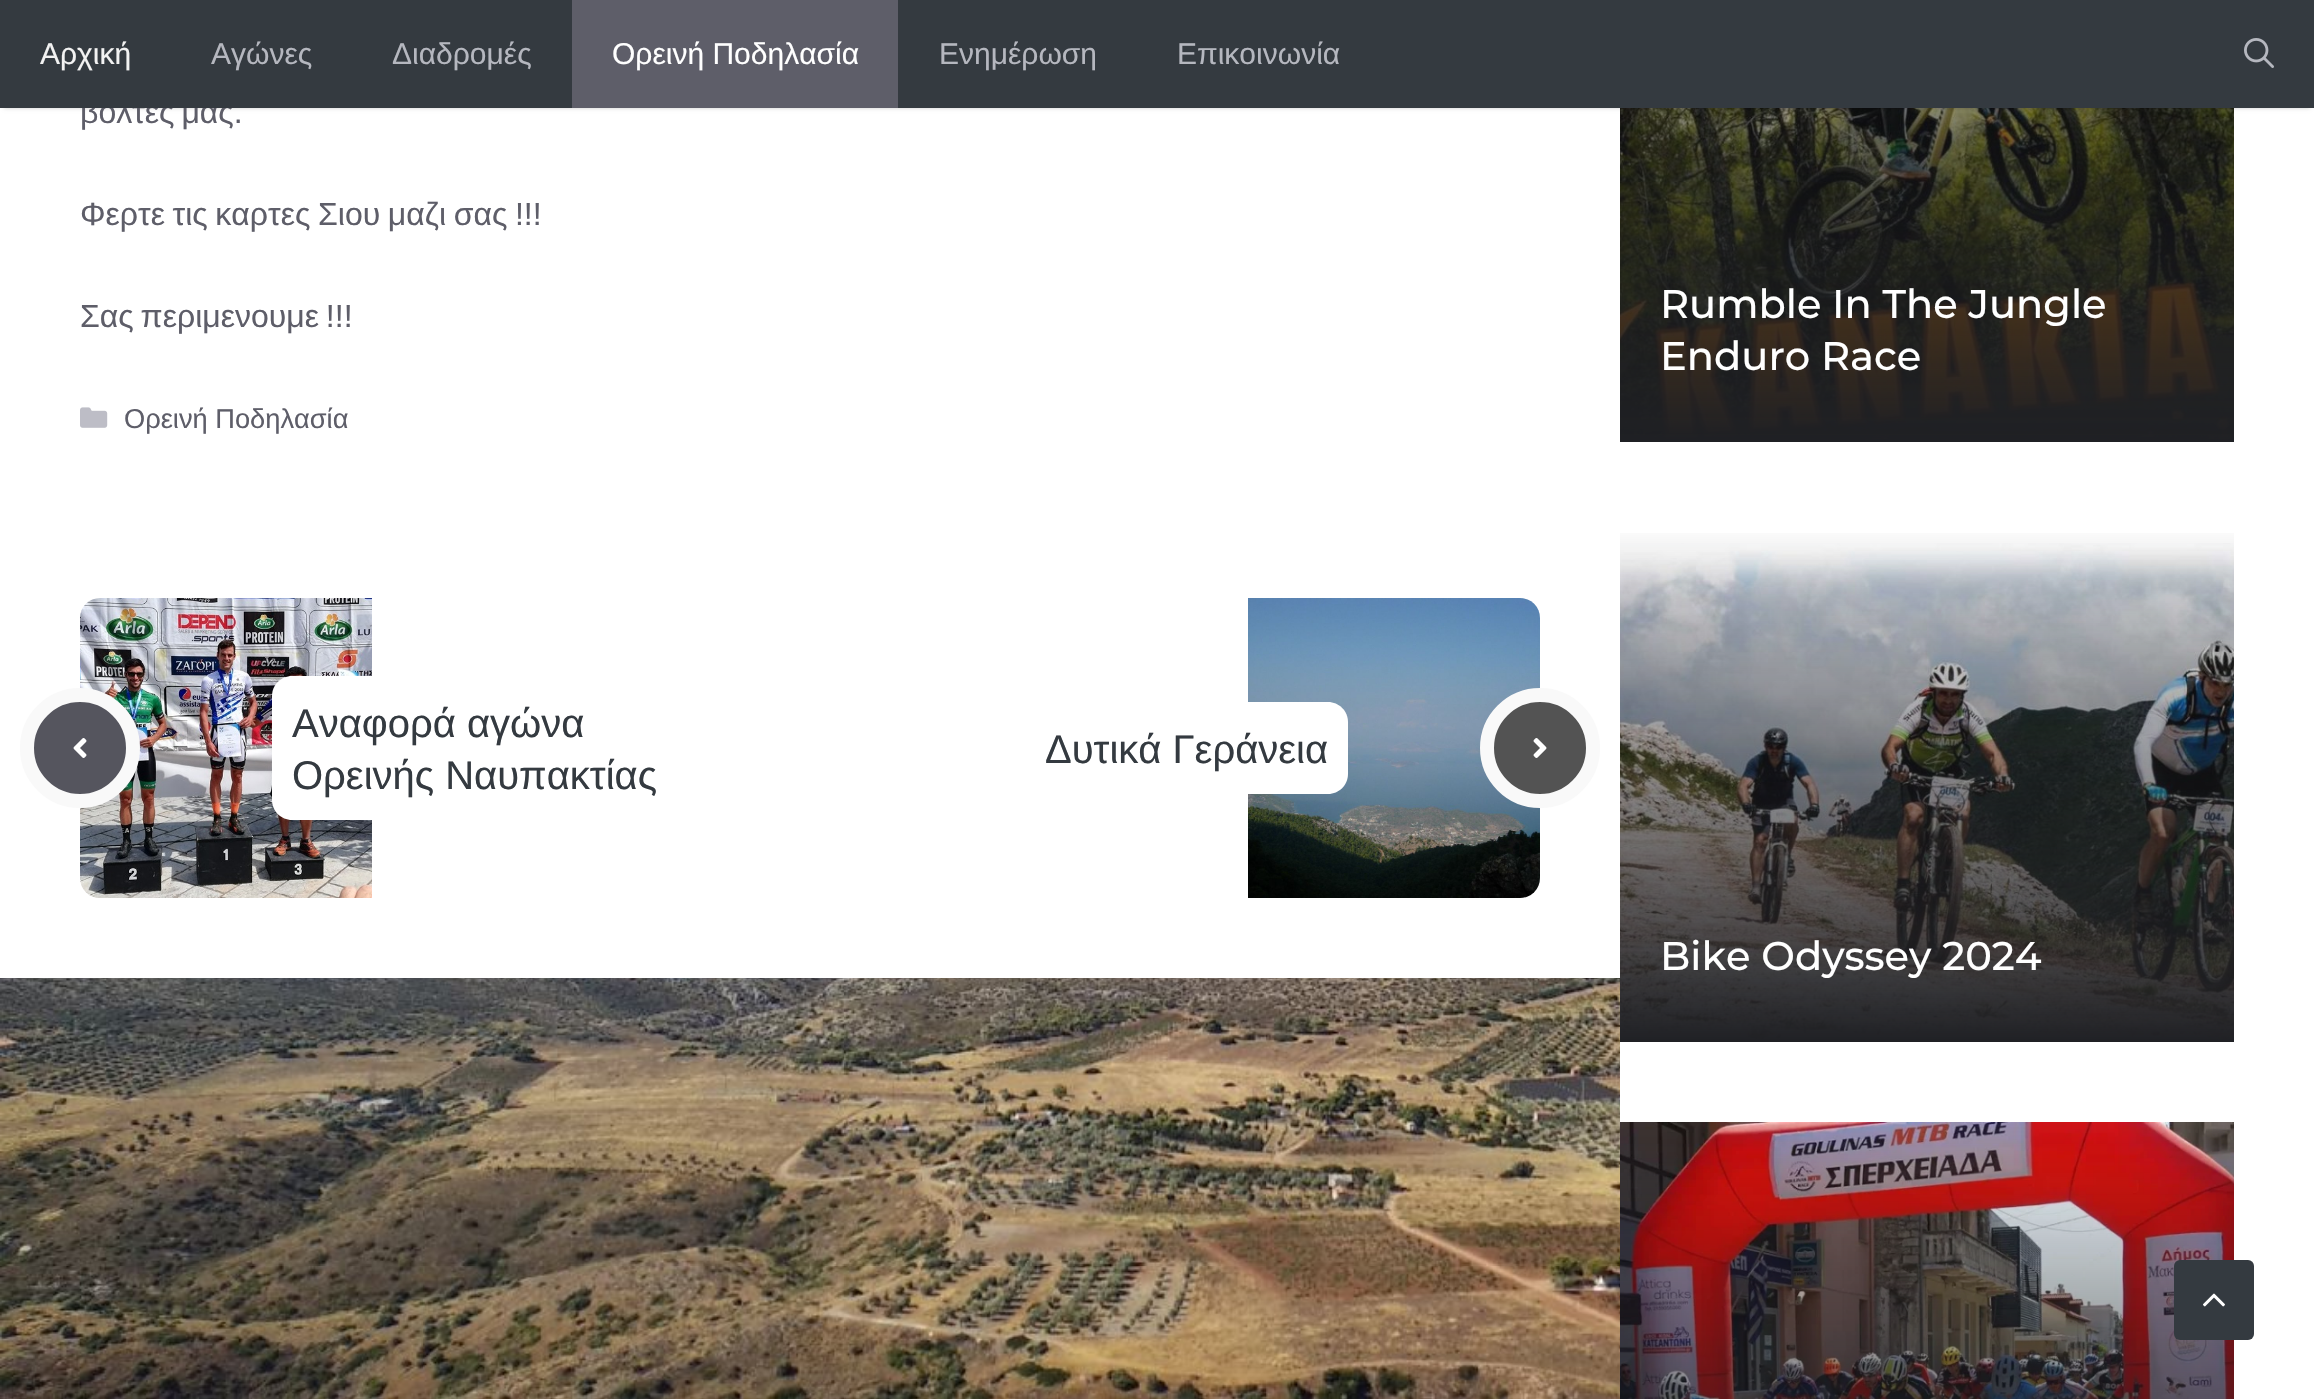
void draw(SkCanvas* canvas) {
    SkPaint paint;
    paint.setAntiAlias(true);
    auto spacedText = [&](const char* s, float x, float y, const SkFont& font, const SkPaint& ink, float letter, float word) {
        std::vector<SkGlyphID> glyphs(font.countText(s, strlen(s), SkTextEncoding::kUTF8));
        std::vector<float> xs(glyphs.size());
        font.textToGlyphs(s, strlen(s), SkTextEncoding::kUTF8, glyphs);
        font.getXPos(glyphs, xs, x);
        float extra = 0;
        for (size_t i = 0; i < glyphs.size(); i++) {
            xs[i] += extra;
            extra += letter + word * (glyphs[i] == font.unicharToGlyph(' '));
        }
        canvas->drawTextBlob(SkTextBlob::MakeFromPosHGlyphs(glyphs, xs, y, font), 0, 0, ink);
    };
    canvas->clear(0xFFFFFFFF);
    canvas->drawImageRect(SkImages::DeferredFromEncodedData(SkData::MakeFromFileName("img1.png")), SkRect::MakeXYWH(0, 978, 1620, 421), SkSamplingOptions());
    canvas->drawImageRect(SkImages::DeferredFromEncodedData(SkData::MakeFromFileName("img8.png")), SkRect::MakeXYWH(1620, 108, 614, 334), SkSamplingOptions());
    paint.setColor(0x33000000);
    paint.setMaskFilter(SkMaskFilter::MakeBlur(kNormal_SkBlurStyle, 2));
    canvas->drawRect(SkRect::MakeXYWH(4, 8, 2306, 100), paint);
    paint.setMaskFilter(nullptr);
    SkFont font1(fontMgr->matchFamilyStyle("Liberation Sans", SkFontStyle::Normal()), 32);
    font1.setSubpixel(true);
    paint.setColor(0xFF5E5E69);
    spacedText("βολτες μας.", 80, 123, font1, paint, 0, -2);
    paint.setColor(0xFF343A40);
    canvas->drawRect(SkRect::MakeXYWH(0, 0, 2314, 108), paint);
    SkFont font2(fontMgr->matchFamilyStyle("Liberation Sans", SkFontStyle::Normal()), 30);
    font2.setSubpixel(true);
    paint.setColor(0xFFF2F2F2);
    canvas->drawString("Αρχική", 40, 64, font2, paint);
    paint.setColor(0xFFB5B7BF);
    canvas->drawString("Αγώνες", 211, 64, font2, paint);
    canvas->drawString("Διαδρομές", 392, 64, font2, paint);
    paint.setColor(0xFF5E5E69);
    canvas->drawRect(SkRect::MakeXYWH(572, 0, 326, 108), paint);
    paint.setColor(0xFFFFFFFF);
    canvas->drawString("Ορεινή Ποδηλασία", 612, 64, font2, paint);
    paint.setColor(0xFFB5B7BF);
    canvas->drawString("Ενημέρωση", 939, 64, font2, paint);
    canvas->drawString("Επικοινωνία", 1177, 64, font2, paint);
    canvas->drawImageRect(SkImages::DeferredFromEncodedData(SkData::MakeFromFileName("img2.png")), SkRect::MakeXYWH(2244, 38, 30, 30), SkSamplingOptions());
    paint.setColor(0xFF5E5E69);
    spacedText("Φερτε τις καρτες Σιου μαζι σας !!!", 80, 225, font1, paint, 0, -1.25f);
    spacedText("Σας περιμενουμε !!!", 80, 327, font1, paint, 0, -2);
    canvas->drawImageRect(SkImages::DeferredFromEncodedData(SkData::MakeFromFileName("img3.png")), SkRect::MakeXYWH(80, 407, 28, 21), SkSamplingOptions());
    SkFont font3(fontMgr->matchFamilyStyle("Liberation Sans", SkFontStyle::Normal()), 27.25f);
    font3.setSubpixel(true);
    canvas->drawString("Ορεινή Ποδηλασία", 124, 428, font3, paint);
    canvas->drawImageRect(SkImages::DeferredFromEncodedData(SkData::MakeFromFileName("img4.png")), SkRect::MakeXYWH(80, 598, 292, 300), SkSamplingOptions());
    paint.setColor(0xFF55555E);
    canvas->drawCircle(80, 748, 53, paint);
    paint.setStyle(SkPaint::kStroke_Style);
    paint.setStrokeWidth(14);
    paint.setColor(0xFFF9F9F9);
    canvas->drawCircle(80, 748, 53, paint);
    canvas->drawImageRect(SkImages::DeferredFromEncodedData(SkData::MakeFromFileName("img5.png")), SkRect::MakeXYWH(73, 738, 14, 20), SkSamplingOptions());
    paint.setStyle(SkPaint::kFill_Style);
    paint.setColor(0xFFFFFFFF);
    canvas->drawPath(SkPathBuilder().moveTo(292, 676).lineTo(730, 676).lineTo(730, 820).lineTo(292, 820).cubicTo(281, 820, 272, 811, 272, 800).lineTo(272, 696).cubicTo(272, 685, 281, 676, 292, 676).close().detach(), paint);
    SkFont font4(fontMgr->matchFamilyStyle("Liberation Sans", SkFontStyle::Normal()), 40);
    font4.setSubpixel(true);
    paint.setColor(0xFF343A40);
    canvas->drawString("Αναφορά αγώνα", 292, 737, font4, paint);
    canvas->drawString("Ορεινής Ναυπακτίας", 292, 789, font4, paint);
    canvas->drawImageRect(SkImages::DeferredFromEncodedData(SkData::MakeFromFileName("img6.png")), SkRect::MakeXYWH(1248, 598, 292, 300), SkSamplingOptions());
    paint.setColor(0xFFFFFFFF);
    canvas->drawPath(SkPathBuilder().moveTo(890, 702).lineTo(1328, 702).cubicTo(1339, 702, 1348, 711, 1348, 722).lineTo(1348, 774).cubicTo(1348, 785, 1339, 794, 1328, 794).lineTo(890, 794).close().detach(), paint);
    paint.setColor(0xFF343A40);
    canvas->drawString("Δυτικά Γεράνεια", 1045, 763, font4, paint);
    paint.setColor(0xFF535353);
    canvas->drawCircle(1540, 748, 53, paint);
    paint.setStyle(SkPaint::kStroke_Style);
    paint.setColor(0xFFF9F9F9);
    canvas->drawCircle(1540, 748, 53, paint);
    canvas->drawImageRect(SkImages::DeferredFromEncodedData(SkData::MakeFromFileName("img7.png")), SkRect::MakeXYWH(1533, 738, 14, 20), SkSamplingOptions());
    SkFont font5(fontMgr->matchFamilyStyle("Montserrat", SkFontStyle(500, SkFontStyle::kNormal_Width, SkFontStyle::kUpright_Slant)), 40);
    font5.setSubpixel(true);
    paint.setStyle(SkPaint::kFill_Style);
    paint.setColor(0xFFFFFFFF);
    canvas->drawString("Rumble In The Jungle", 1660, 318, font5, paint);
    canvas->drawString("Enduro Race", 1660, 370, font5, paint);
    canvas->drawImageRect(SkImages::DeferredFromEncodedData(SkData::MakeFromFileName("img9.png")), SkRect::MakeXYWH(1620, 543, 614, 496), SkSamplingOptions());
    {
        const SkColor colors[] = {0x001F2024, 0xFF1F2024};
        const float stops[] = {0, 1};
        const SkPoint ends[] = {{1927, 522}, {1927, 1042}};
        paint.setShader(SkGradientShader::MakeLinear(ends, colors, stops, 2, SkTileMode::kClamp));
        paint.setAlpha(255);
    }
    canvas->drawRect(SkRect::MakeXYWH(1620, 533, 614, 509), paint);
    paint.setShader(nullptr);
    paint.setColor(0xFFFFFFFF);
    canvas->drawString("Bike Odyssey 2024", 1660, 970, font5, paint);
    canvas->drawImageRect(SkImages::DeferredFromEncodedData(SkData::MakeFromFileName("img10.png")), SkRect::MakeXYWH(1620, 1122, 614, 277), SkSamplingOptions());
    paint.setColor(0xFF343A40);
    canvas->drawRoundRect(SkRect::MakeXYWH(2174, 1260, 80, 80), 6, 6, paint);
    canvas->drawImageRect(SkImages::DeferredFromEncodedData(SkData::MakeFromFileName("img11.png")), SkRect::MakeXYWH(2203, 1293, 22, 14), SkSamplingOptions());
}
